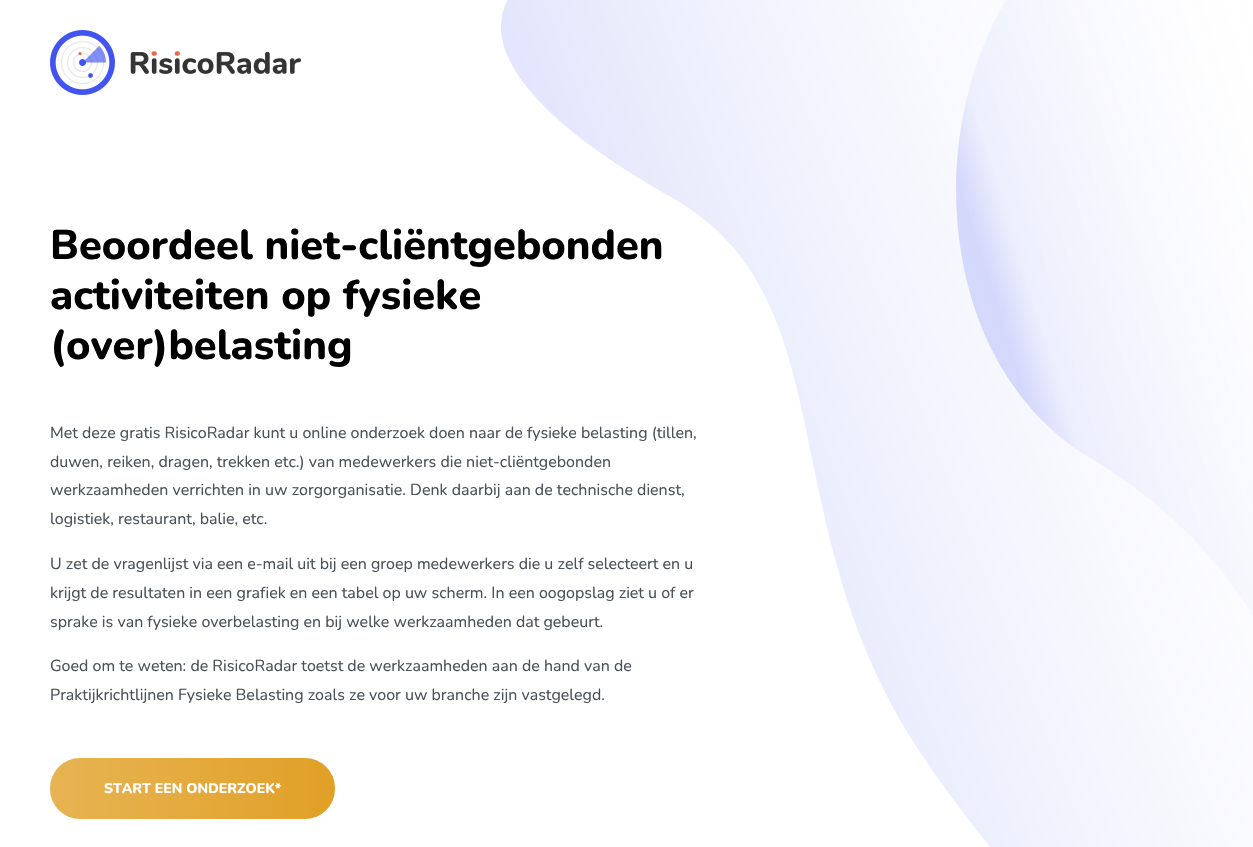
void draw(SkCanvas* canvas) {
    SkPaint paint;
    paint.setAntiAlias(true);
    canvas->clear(0xFFFFFFFF);
    canvas->drawImageRect(SkImages::DeferredFromEncodedData(SkData::MakeFromFileName("img1.png")), SkRect::MakeXYWH(501, 0, 752, 847), SkSamplingOptions());
    canvas->drawImageRect(SkImages::DeferredFromEncodedData(SkData::MakeFromFileName("img2.png")), SkRect::MakeXYWH(50, 30, 251, 65), SkSamplingOptions());
    SkFont font1(fontMgr->matchFamilyStyle("Nunito", SkFontStyle(800, SkFontStyle::kNormal_Width, SkFontStyle::kUpright_Slant)), 41.6f);
    font1.setSubpixel(true);
    paint.setColor(0xFF000000);
    canvas->drawString("Beoordeel niet-cliëntgebonden", 50, 259, font1, paint);
    canvas->drawString("activiteiten op fysieke", 50, 309, font1, paint);
    canvas->drawString("(over)belasting", 50, 359, font1, paint);
    SkFont font2(fontMgr->matchFamilyStyle("Nunito", SkFontStyle::Normal()), 16);
    font2.setSubpixel(true);
    paint.setColor(0xFF495057);
    canvas->drawString("Met deze gratis RisicoRadar kunt u online onderzoek doen naar de fysieke belasting (tillen,", 50, 438, font2, paint);
    canvas->drawString("duwen, reiken, dragen, trekken etc.) van medewerkers die niet-cliëntgebonden", 50, 467, font2, paint);
    canvas->drawString("werkzaamheden verrichten in uw zorgorganisatie. Denk daarbij aan de technische dienst,", 50, 495, font2, paint);
    canvas->drawString("logistiek, restaurant, balie, etc.", 50, 524, font2, paint);
    canvas->drawString("U zet de vragenlijst via een e-mail uit bij een groep medewerkers die u zelf selecteert en u", 50, 569, font2, paint);
    canvas->drawString("krijgt de resultaten in een grafiek en een tabel op uw scherm. In een oogopslag ziet u of er", 50, 598, font2, paint);
    canvas->drawString("sprake is van fysieke overbelasting en bij welke werkzaamheden dat gebeurt.", 50, 627, font2, paint);
    canvas->drawString("Goed om te weten: de RisicoRadar toetst de werkzaamheden aan de hand van de", 50, 671, font2, paint);
    canvas->drawString("Praktijkrichtlijnen Fysieke Belasting zoals ze voor uw branche zijn vastgelegd.", 50, 700, font2, paint);
    {
        const SkColor colors[] = {0xFFE7B453, 0xFFE1A026};
        const float stops[] = {0, 1};
        const SkPoint ends[] = {{50, 789}, {335, 789}};
        paint.setShader(SkGradientShader::MakeLinear(ends, colors, stops, 2, SkTileMode::kClamp));
        paint.setAlpha(255);
    }
    canvas->drawRoundRect(SkRect::MakeXYWH(50, 758, 285, 61), 30, 30, paint);
    SkFont font3(fontMgr->matchFamilyStyle("Nunito", SkFontStyle(800, SkFontStyle::kNormal_Width, SkFontStyle::kUpright_Slant)), 14);
    font3.setSubpixel(true);
    paint.setShader(nullptr);
    paint.setColor(0xFFFFFFFF);
    canvas->drawString("START EEN ONDERZOEK*", 104, 793, font3, paint);
}
